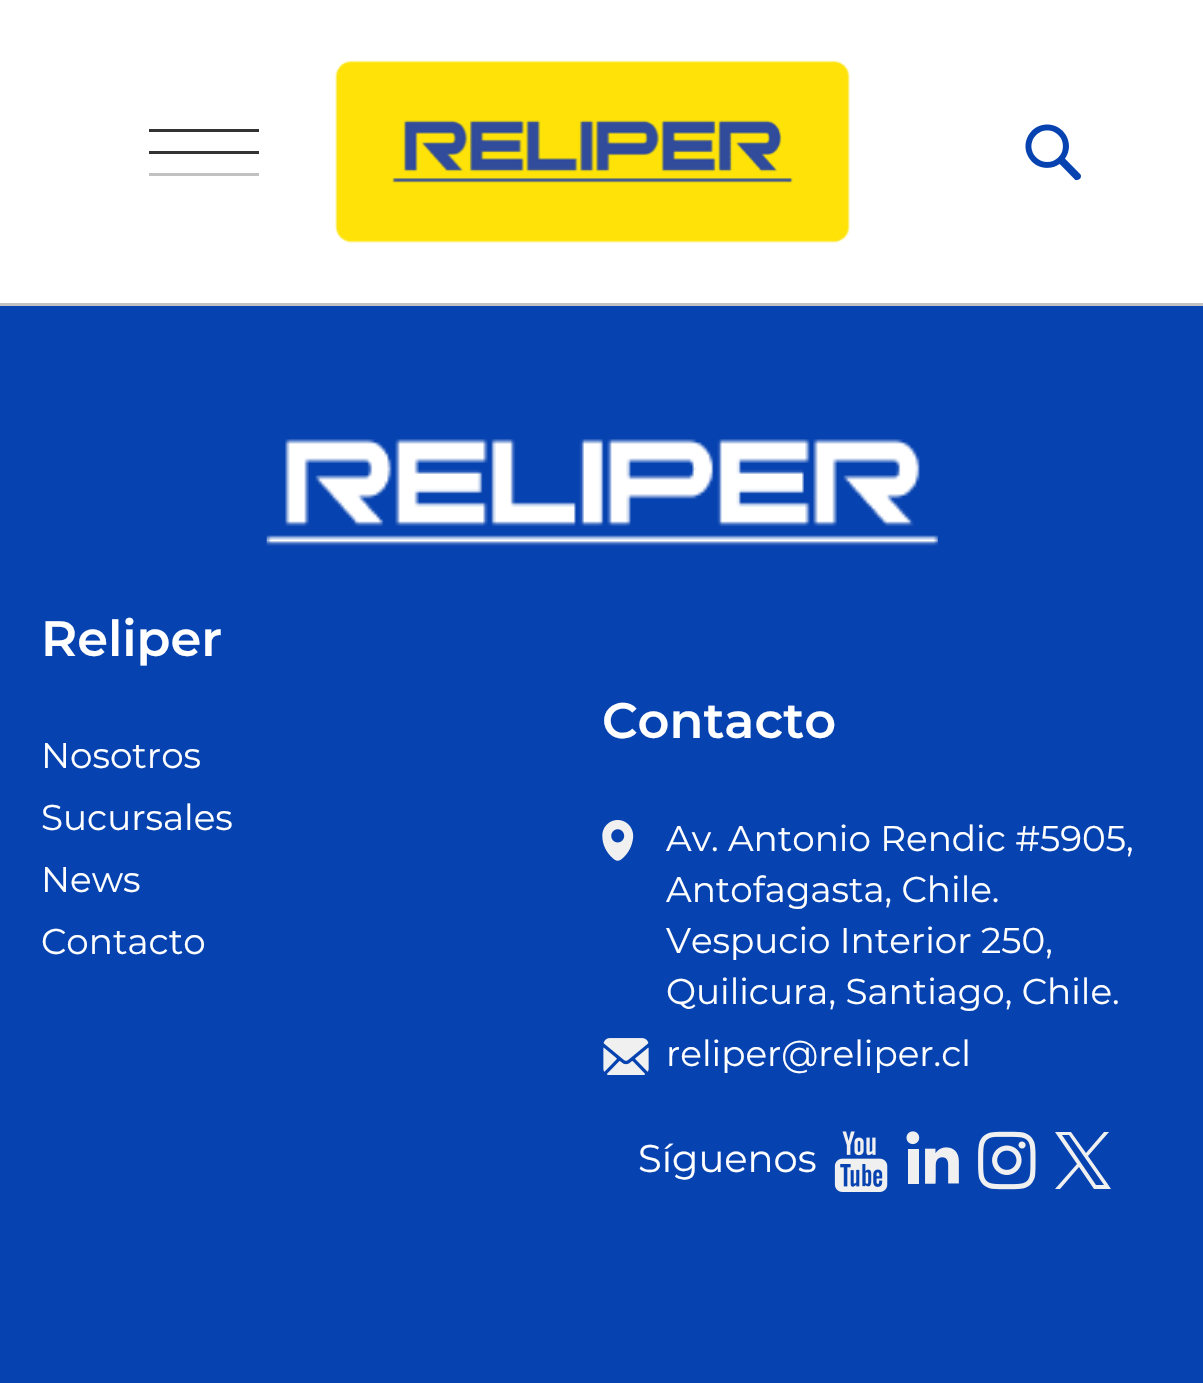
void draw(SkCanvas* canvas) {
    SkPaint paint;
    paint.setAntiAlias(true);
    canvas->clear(0xFF0642B0);
    paint.setColor(0xFFFFFFFF);
    canvas->drawRect(SkRect::MakeXYWH(0, 0, 1203, 303), paint);
    paint.setColor(0xFFC1C1C1);
    canvas->drawRect(SkRect::MakeXYWH(0, 303, 1203, 3), paint);
    paint.setColor(0xFF333333);
    canvas->drawRect(SkRect::MakeXYWH(149, 129, 110, 3), paint);
    paint.setColor(0xFFC1C1C1);
    canvas->drawRect(SkRect::MakeXYWH(149, 173, 110, 3), paint);
    paint.setColor(0xFF333333);
    canvas->drawRect(SkRect::MakeXYWH(149, 151, 110, 3), paint);
    canvas->drawImageRect(SkImages::DeferredFromEncodedData(SkData::MakeFromFileName("img1.png")), SkRect::MakeXYWH(335, 60, 516, 183), SkSamplingOptions());
    canvas->drawImageRect(SkImages::DeferredFromEncodedData(SkData::MakeFromFileName("img2.png")), SkRect::MakeXYWH(1025, 124, 56, 57), SkSamplingOptions());
    canvas->drawImageRect(SkImages::DeferredFromEncodedData(SkData::MakeFromFileName("img3.png")), SkRect::MakeXYWH(266, 439, 672, 107), SkSamplingOptions());
    SkFont font1(fontMgr->matchFamilyStyle("Montserrat", SkFontStyle(600, SkFontStyle::kNormal_Width, SkFontStyle::kUpright_Slant)), 49.5f);
    font1.setSubpixel(true);
    paint.setColor(0xFFFFFFFF);
    canvas->drawString("Reliper", 41, 656, font1, paint);
    SkFont font2(fontMgr->matchFamilyStyle("Montserrat", SkFontStyle::Normal()), 35.75f);
    font2.setSubpixel(true);
    canvas->drawString("Nosotros", 41, 768, font2, paint);
    canvas->drawString("Sucursales", 41, 830, font2, paint);
    canvas->drawString("News", 41, 892, font2, paint);
    canvas->drawString("Contacto", 41, 954, font2, paint);
    canvas->drawString("Contacto", 602, 738, font1, paint);
    canvas->drawImageRect(SkImages::DeferredFromEncodedData(SkData::MakeFromFileName("img4.png")), SkRect::MakeXYWH(602, 820, 32, 41), SkSamplingOptions());
    canvas->drawString("Av. Antonio Rendic #5905,", 666, 851, font2, paint);
    canvas->drawString("Antofagasta, Chile.", 666, 902, font2, paint);
    canvas->drawString("Vespucio Interior 250,", 666, 953, font2, paint);
    canvas->drawString("Quilicura, Santiago, Chile.", 666, 1004, font2, paint);
    canvas->drawImageRect(SkImages::DeferredFromEncodedData(SkData::MakeFromFileName("img5.png")), SkRect::MakeXYWH(603, 1038, 46, 37), SkSamplingOptions());
    canvas->drawString("reliper@reliper.cl", 666, 1066, font2, paint);
    SkFont font3(fontMgr->matchFamilyStyle("Montserrat", SkFontStyle::Normal()), 38.5f);
    font3.setSubpixel(true);
    canvas->drawString("Síguenos", 638, 1172, font3, paint);
    canvas->drawImageRect(SkImages::DeferredFromEncodedData(SkData::MakeFromFileName("img6.png")), SkRect::MakeXYWH(834, 1131, 54, 61), SkSamplingOptions());
    canvas->drawImageRect(SkImages::DeferredFromEncodedData(SkData::MakeFromFileName("img7.png")), SkRect::MakeXYWH(906, 1131, 53, 53), SkSamplingOptions());
    canvas->drawImageRect(SkImages::DeferredFromEncodedData(SkData::MakeFromFileName("img8.png")), SkRect::MakeXYWH(978, 1131, 58, 59), SkSamplingOptions());
    paint.setColor(0xFFF0F0F0);
    canvas->drawPath(SkPathBuilder().moveTo(1107, 1183).lineTo(1088, 1156).lineTo(1109, 1132).lineTo(1104, 1132).lineTo(1086, 1153).lineTo(1071, 1132).lineTo(1055, 1132).lineTo(1077, 1164).lineTo(1055, 1189).lineTo(1060, 1189).lineTo(1079, 1167).lineTo(1094, 1189).lineTo(1111, 1189).close().moveTo(1096, 1185).lineTo(1062, 1135).lineTo(1069, 1135).lineTo(1104, 1185).close().detach(), paint);
}
